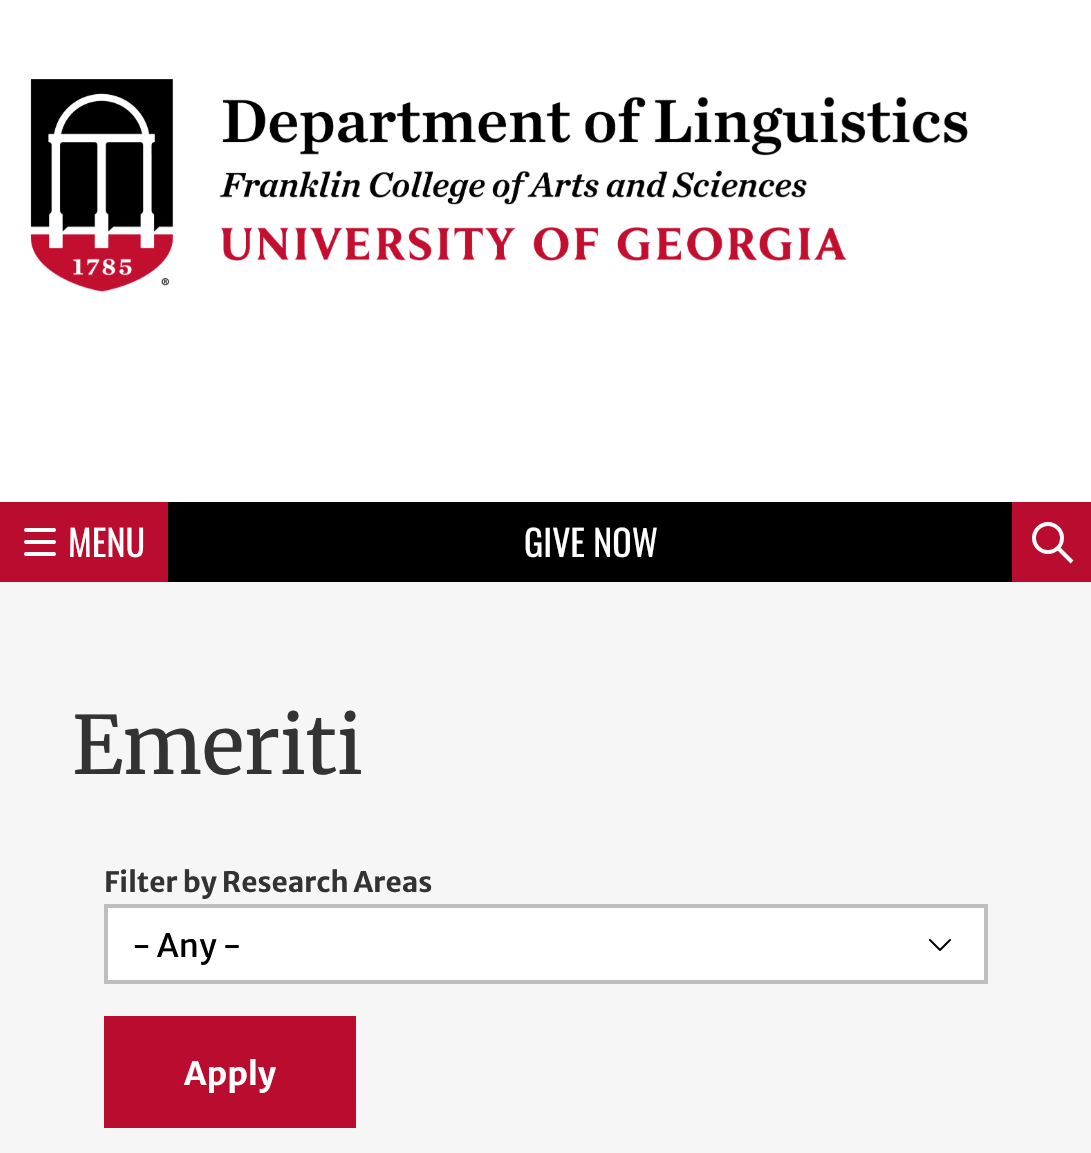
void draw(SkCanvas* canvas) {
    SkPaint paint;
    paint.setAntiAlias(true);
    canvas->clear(0xFFFFFFFF);
    canvas->drawImageRect(SkImages::DeferredFromEncodedData(SkData::MakeFromFileName("img1.png")), SkRect::MakeXYWH(30, 79, 938, 213), SkSamplingOptions());
    paint.setColor(0xFF000000);
    canvas->drawRect(SkRect::MakeXYWH(168, 502, 844, 80), paint);
    paint.setColor(0xFFBA0C2F);
    canvas->drawRect(SkRect::MakeXYWH(0, 502, 168, 80), paint);
    paint.setStyle(SkPaint::kStroke_Style);
    paint.setStrokeWidth(4);
    paint.setStrokeCap(SkPaint::kRound_Cap);
    paint.setColor(0xFFFFFFFF);
    canvas->drawPath(SkPathBuilder().moveTo(26, 530).lineTo(54, 530).moveTo(26, 542).lineTo(54, 542).moveTo(26, 554).lineTo(54, 554).detach(), paint);
    SkFont font1(fontMgr->matchFamilyStyle("Oswald", SkFontStyle::Normal()), 36);
    font1.setSubpixel(true);
    paint.setStyle(SkPaint::kFill_Style);
    canvas->drawString("MENU", 68, 557, font1, paint);
    canvas->drawString("GIVE NOW", 524, 557, font1, paint);
    paint.setColor(0xFFBA0C2F);
    canvas->drawRect(SkRect::MakeXYWH(1012, 502, 79, 80), paint);
    paint.setStyle(SkPaint::kStroke_Style);
    paint.setStrokeCap(SkPaint::kButt_Cap);
    paint.setColor(0xFFFFFFFF);
    canvas->drawCircle(1048, 538, 14, paint);
    canvas->drawPath(SkPathBuilder().moveTo(1058, 548).lineTo(1072, 562).detach(), paint);
    paint.setStyle(SkPaint::kFill_Style);
    paint.setColor(0xFFF6F6F6);
    canvas->drawRect(SkRect::MakeXYWH(0, 582, 1091, 571), paint);
    SkFont font2(fontMgr->matchFamilyStyle("Merriweather", SkFontStyle(300, SkFontStyle::kNormal_Width, SkFontStyle::kUpright_Slant)), 80);
    font2.setSubpixel(true);
    paint.setColor(0xFF333333);
    canvas->drawString("Emeriti", 72, 774, font2, paint);
    SkFont font3(fontMgr->matchFamilyStyle("Merriweather Sans", SkFontStyle::Bold()), 28);
    font3.setSubpixel(true);
    canvas->drawString("Filter by Research Areas", 104, 892, font3, paint);
    paint.setColor(0xFFFFFFFF);
    canvas->drawRect(SkRect::MakeXYWH(108, 908, 876, 72), paint);
    paint.setStyle(SkPaint::kStroke_Style);
    paint.setStrokeWidth(2);
    paint.setStrokeCap(SkPaint::kRound_Cap);
    paint.setStrokeJoin(SkPaint::kRound_Join);
    paint.setColor(0xFF000000);
    canvas->drawPath(SkPathBuilder().moveTo(930, 940).lineTo(940, 950).lineTo(950, 940).detach(), paint);
    paint.setStrokeWidth(4);
    paint.setStrokeCap(SkPaint::kButt_Cap);
    paint.setStrokeJoin(SkPaint::kMiter_Join);
    paint.setColor(0xFFBFBFBF);
    canvas->drawRect(SkRect::MakeXYWH(106, 906, 880, 76), paint);
    SkFont font4(fontMgr->matchFamilyStyle("Merriweather Sans", SkFontStyle::Normal()), 32);
    font4.setSubpixel(true);
    paint.setStyle(SkPaint::kFill_Style);
    paint.setColor(0xFF000000);
    canvas->drawString("- Any -", 132, 957, font4, paint);
    paint.setColor(0xFFBA0C2F);
    canvas->drawRect(SkRect::MakeXYWH(104, 1016, 252, 112), paint);
    SkFont font5(fontMgr->matchFamilyStyle("Merriweather Sans", SkFontStyle::Bold()), 32);
    font5.setSubpixel(true);
    paint.setColor(0xFFFFFFFF);
    canvas->drawString("Apply", 184, 1085, font5, paint);
}
